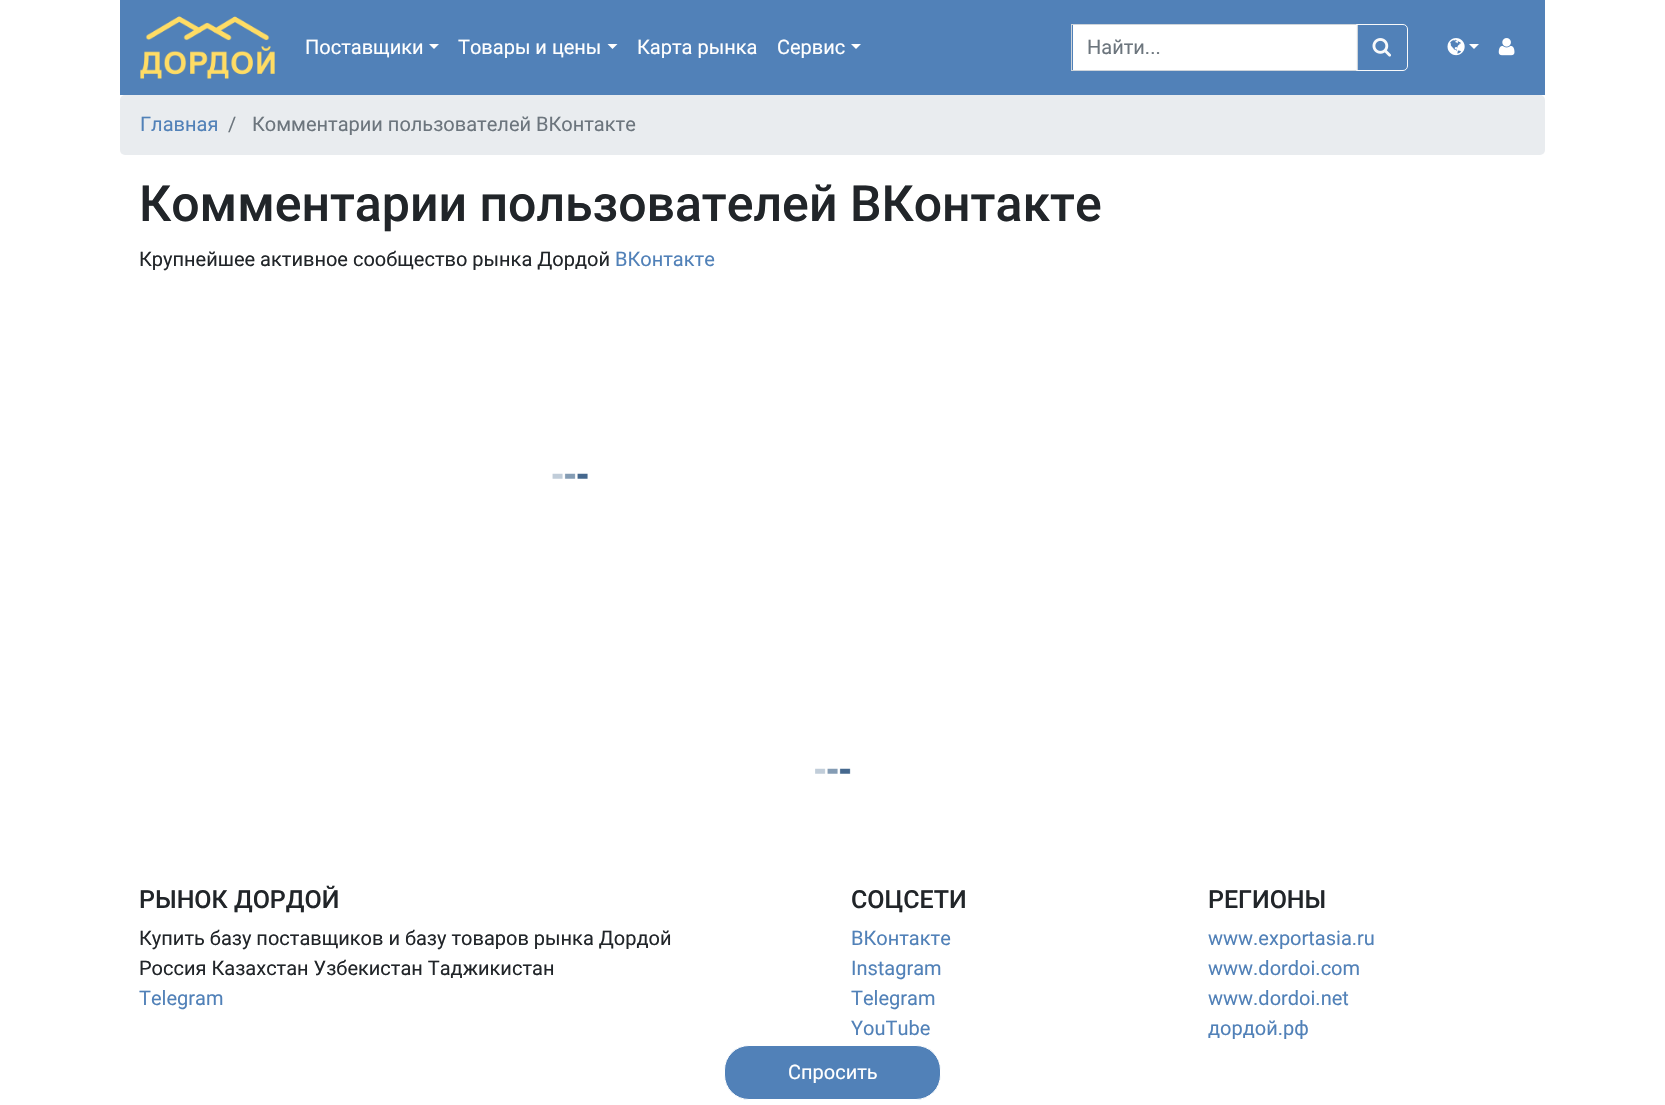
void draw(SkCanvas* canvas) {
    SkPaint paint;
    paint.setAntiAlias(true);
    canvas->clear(0xFFFFFFFF);
    paint.setColor(0xFF5181B8);
    canvas->drawRect(SkRect::MakeXYWH(120, 0, 1425, 95), paint);
    canvas->drawImageRect(SkImages::DeferredFromEncodedData(SkData::MakeFromFileName("img1.png")), SkRect::MakeXYWH(140, 16, 135, 63), SkSamplingOptions());
    SkFont font1(fontMgr->matchFamilyStyle("Roboto", SkFontStyle::Normal()), 20);
    font1.setSubpixel(true);
    paint.setColor(0xFFFFFFFF);
    canvas->drawString("Поставщики", 305, 54, font1, paint);
    canvas->drawPath(SkPathBuilder().moveTo(429, 44).lineTo(439, 44).lineTo(434, 49).close().detach(), paint);
    canvas->drawString("Товары и цены", 458, 54, font1, paint);
    canvas->drawPath(SkPathBuilder().moveTo(607.5f, 44).lineTo(617.5f, 44).lineTo(612.5f, 49).close().detach(), paint);
    canvas->drawString("Карта рынка", 637, 54, font1, paint);
    canvas->drawString("Сервис", 777, 54, font1, paint);
    canvas->drawPath(SkPathBuilder().moveTo(851, 44).lineTo(861, 44).lineTo(856, 49).close().detach(), paint);
    canvas->drawRect(SkRect::MakeXYWH(1073, 25, 283, 45), paint);
    paint.setStyle(SkPaint::kStroke_Style);
    paint.setStrokeWidth(1);
    paint.setColor(0xFFCED4DA);
    canvas->drawRect(SkRect::MakeXYWH(1071.5f, 24.5f, 286, 46), paint);
    paint.setStyle(SkPaint::kFill_Style);
    paint.setColor(0xFF6C757D);
    canvas->drawString("Найти...", 1087, 54, font1, paint);
    paint.setStyle(SkPaint::kStroke_Style);
    paint.setColor(0xFFF8F9FA);
    canvas->drawPath(SkPathBuilder().moveTo(1356.5f, 24.5f).lineTo(1403, 24.5f).cubicTo(1405.5f, 24.5f, 1407.5f, 26.5f, 1407.5f, 29).lineTo(1407.5f, 66).cubicTo(1407.5f, 68.5f, 1405.5f, 70.5f, 1403, 70.5f).lineTo(1356.5f, 70.5f).close().detach(), paint);
    canvas->drawImageRect(SkImages::DeferredFromEncodedData(SkData::MakeFromFileName("img2.png")), SkRect::MakeXYWH(1372, 38, 19, 19), SkSamplingOptions());
    canvas->drawImageRect(SkImages::DeferredFromEncodedData(SkData::MakeFromFileName("img3.png")), SkRect::MakeXYWH(1447, 38, 18, 18), SkSamplingOptions());
    paint.setStyle(SkPaint::kFill_Style);
    paint.setColor(0xFFFFFFFF);
    canvas->drawPath(SkPathBuilder().moveTo(1469, 44).lineTo(1479, 44).lineTo(1474, 49).close().detach(), paint);
    canvas->drawImageRect(SkImages::DeferredFromEncodedData(SkData::MakeFromFileName("img4.png")), SkRect::MakeXYWH(1498, 38, 17, 18), SkSamplingOptions());
    paint.setColor(0xFFE9ECEF);
    canvas->drawRoundRect(SkRect::MakeXYWH(120, 95, 1425, 60), 5, 5, paint);
    paint.setColor(0xFF5181B8);
    canvas->drawString("Главная", 140, 131, font1, paint);
    paint.setColor(0xFF6C757D);
    canvas->drawString("/", 228, 131, font1, paint);
    canvas->drawString("Комментарии пользователей ВКонтакте", 252, 131, font1, paint);
    SkFont font2(fontMgr->matchFamilyStyle("Roboto", SkFontStyle(500, SkFontStyle::kNormal_Width, SkFontStyle::kUpright_Slant)), 50);
    font2.setSubpixel(true);
    paint.setColor(0xFF212529);
    canvas->drawString("Комментарии пользователей ВКонтакте", 139, 221, font2, paint);
    canvas->drawString("Крупнейшее активное сообщество рынка Дордой", 139, 266, font1, paint);
    paint.setColor(0xFF5181B8);
    canvas->drawString("ВКонтакте", 615, 266, font1, paint);
    canvas->drawImageRect(SkImages::DeferredFromEncodedData(SkData::MakeFromFileName("img5.png")), SkRect::MakeXYWH(552, 473, 36, 6), SkSamplingOptions());
    canvas->drawImageRect(SkImages::DeferredFromEncodedData(SkData::MakeFromFileName("img6.png")), SkRect::MakeXYWH(815, 768, 36, 6), SkSamplingOptions());
    SkFont font3(fontMgr->matchFamilyStyle("Roboto", SkFontStyle(500, SkFontStyle::kNormal_Width, SkFontStyle::kUpright_Slant)), 25);
    font3.setSubpixel(true);
    paint.setColor(0xFF212529);
    canvas->drawString("РЫНОК ДОРДОЙ", 139, 908, font3, paint);
    canvas->drawString("Купить базу поставщиков и базу товаров рынка Дордой", 139, 945, font1, paint);
    canvas->drawString("Россия Казахстан Узбекистан Таджикистан", 139, 975, font1, paint);
    paint.setColor(0xFF5181B8);
    canvas->drawString("Telegram", 139, 1005, font1, paint);
    paint.setColor(0xFF212529);
    canvas->drawString("СОЦСЕТИ", 851, 908, font3, paint);
    paint.setColor(0xFF5181B8);
    canvas->drawString("ВКонтакте", 851, 945, font1, paint);
    canvas->drawString("Instagram", 851, 975, font1, paint);
    canvas->drawString("Telegram", 851, 1005, font1, paint);
    canvas->drawString("YouTube", 851, 1035, font1, paint);
    paint.setColor(0xFF212529);
    canvas->drawString("РЕГИОНЫ", 1208, 908, font3, paint);
    paint.setColor(0xFF5181B8);
    canvas->drawString("www.exportasia.ru", 1208, 945, font1, paint);
    canvas->drawString("www.dordoi.com", 1208, 975, font1, paint);
    canvas->drawString("www.dordoi.net", 1208, 1005, font1, paint);
    canvas->drawString("дордой.рф", 1208, 1035, font1, paint);
    canvas->drawRoundRect(SkRect::MakeXYWH(724.5f, 1045.5f, 216, 54), 24.5f, 24.5f, paint);
    paint.setStyle(SkPaint::kStroke_Style);
    paint.setColor(0xFFFFFFFF);
    canvas->drawRoundRect(SkRect::MakeXYWH(724.5f, 1045.5f, 216, 54), 24.5f, 24.5f, paint);
    paint.setStyle(SkPaint::kFill_Style);
    canvas->drawString("Спросить", 788, 1079, font1, paint);
}
